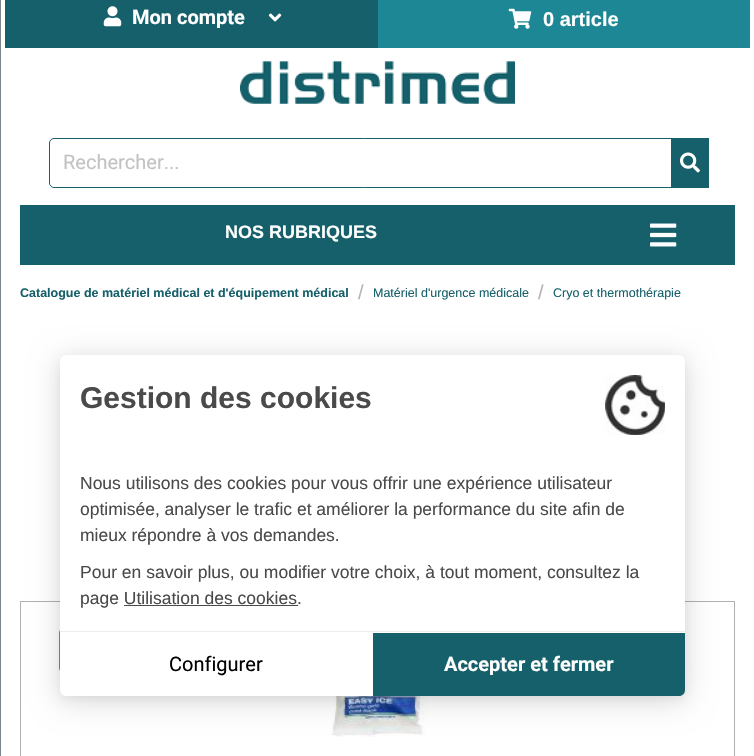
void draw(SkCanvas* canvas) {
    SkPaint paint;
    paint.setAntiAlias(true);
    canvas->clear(0xFFFFFFFF);
    paint.setColor(0xFF77878B);
    canvas->drawRect(SkRect::MakeXYWH(0, 0, 1, 756), paint);
    paint.setColor(0xFF15606A);
    canvas->drawRect(SkRect::MakeXYWH(5, 0, 373, 48), paint);
    canvas->drawImageRect(SkImages::DeferredFromEncodedData(SkData::MakeFromFileName("img1.png")), SkRect::MakeXYWH(103, 6, 19, 21), SkSamplingOptions());
    SkFont font1(fontMgr->matchFamilyStyle("Roboto", SkFontStyle::Bold()), 20);
    font1.setSubpixel(true);
    paint.setColor(0xFFFFFFFF);
    canvas->drawString("Mon compte", 132, 24, font1, paint);
    canvas->drawImageRect(SkImages::DeferredFromEncodedData(SkData::MakeFromFileName("img2.png")), SkRect::MakeXYWH(268, 13, 14, 9), SkSamplingOptions());
    paint.setColor(0xFF1D8795);
    canvas->drawRect(SkRect::MakeXYWH(378, 0, 372, 48), paint);
    canvas->drawImageRect(SkImages::DeferredFromEncodedData(SkData::MakeFromFileName("img3.png")), SkRect::MakeXYWH(508, 8, 24, 21), SkSamplingOptions());
    SkFont font2(fontMgr->matchFamilyStyle("Liberation Sans", SkFontStyle::Bold()), 20);
    font2.setSubpixel(true);
    paint.setColor(0xFFFFFFFF);
    canvas->drawString("0 article", 543, 26, font2, paint);
    canvas->drawImageRect(SkImages::DeferredFromEncodedData(SkData::MakeFromFileName("img4.png")), SkRect::MakeXYWH(240, 61, 275, 43), SkSamplingOptions());
    paint.setStyle(SkPaint::kStroke_Style);
    paint.setStrokeWidth(1);
    paint.setColor(0xFF15606A);
    canvas->drawPath(SkPathBuilder().moveTo(54, 138.5f).lineTo(672.5f, 138.5f).lineTo(672.5f, 187.5f).lineTo(54, 187.5f).cubicTo(51.5f, 187.5f, 49.5f, 185.5f, 49.5f, 183).lineTo(49.5f, 143).cubicTo(49.5f, 140.5f, 51.5f, 138.5f, 54, 138.5f).close().detach(), paint);
    SkFont font3(fontMgr->matchFamilyStyle("Roboto", SkFontStyle::Normal()), 20);
    font3.setSubpixel(true);
    paint.setStyle(SkPaint::kFill_Style);
    paint.setColor(0xFFC3C3C3);
    canvas->drawString("Rechercher...", 63, 169, font3, paint);
    paint.setColor(0xFF15606A);
    canvas->drawRect(SkRect::MakeXYWH(671, 138, 38, 50), paint);
    canvas->drawImageRect(SkImages::DeferredFromEncodedData(SkData::MakeFromFileName("img5.png")), SkRect::MakeXYWH(680, 152, 20, 21), SkSamplingOptions());
    canvas->drawRect(SkRect::MakeXYWH(20, 205, 715, 60), paint);
    SkFont font4(fontMgr->matchFamilyStyle("Liberation Sans", SkFontStyle::Bold()), 18);
    font4.setSubpixel(true);
    paint.setColor(0xFFFFFFFF);
    canvas->drawString("NOS RUBRIQUES", 225, 238, font4, paint);
    canvas->drawImageRect(SkImages::DeferredFromEncodedData(SkData::MakeFromFileName("img6.png")), SkRect::MakeXYWH(650, 223, 27, 24), SkSamplingOptions());
    SkFont font5(fontMgr->matchFamilyStyle("Liberation Sans", SkFontStyle::Bold()), 12.5f);
    font5.setSubpixel(true);
    paint.setColor(0xFF15606A);
    canvas->drawString("Catalogue de matériel médical et d'équipement médical", 20, 297, font5, paint);
    SkFont font6(fontMgr->matchFamilyStyle("Liberation Sans", SkFontStyle::Normal()), 20);
    font6.setSubpixel(true);
    paint.setColor(0xFFB5B5B5);
    canvas->drawString("/", 358, 299, font6, paint);
    SkFont font7(fontMgr->matchFamilyStyle("Liberation Sans", SkFontStyle::Normal()), 12.5f);
    font7.setSubpixel(true);
    paint.setColor(0xFF15606A);
    canvas->drawString("Matériel d'urgence médicale", 373, 297, font7, paint);
    paint.setColor(0xFFB5B5B5);
    canvas->drawString("/", 538, 299, font6, paint);
    paint.setColor(0xFF15606A);
    canvas->drawString("Cryo et thermothérapie", 553, 297, font7, paint);
    paint.setColor(0xFFB1B0B0);
    canvas->drawRect(SkRect::MakeXYWH(20, 601, 715, 1), paint);
    canvas->drawPath(SkPathBuilder().moveTo(735, 601).lineTo(735, 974).lineTo(734, 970).lineTo(734, 602).close().detach(), paint);
    canvas->drawPath(SkPathBuilder().moveTo(20, 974).lineTo(20, 601).lineTo(21, 602).lineTo(21, 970).close().detach(), paint);
    paint.setColor(0xFFF46217);
    canvas->drawRoundRect(SkRect::MakeXYWH(59, 628, 92, 45), 5, 5, paint);
    canvas->drawImageRect(SkImages::DeferredFromEncodedData(SkData::MakeFromFileName("img7.png")), SkRect::MakeXYWH(331, 696, 95, 41), SkSamplingOptions());
    paint.setColor(0x0D000000);
    paint.setMaskFilter(SkMaskFilter::MakeBlur(kNormal_SkBlurStyle, 4));
    canvas->drawRoundRect(SkRect::MakeXYWH(60, 358, 625, 341), 6, 6, paint);
    paint.setMaskFilter(nullptr);
    paint.setColor(0x26000000);
    paint.setMaskFilter(SkMaskFilter::MakeBlur(kNormal_SkBlurStyle, 15));
    canvas->drawRoundRect(SkRect::MakeXYWH(60, 360, 625, 341), 6, 6, paint);
    paint.setMaskFilter(nullptr);
    paint.setColor(0xFFFFFFFF);
    canvas->drawRoundRect(SkRect::MakeXYWH(60, 355, 625, 341), 6, 6, paint);
    SkFont font8(fontMgr->matchFamilyStyle("Liberation Sans", SkFontStyle::Bold()), 30);
    font8.setSubpixel(true);
    paint.setColor(0xFF4A4A4A);
    canvas->drawString("Gestion des cookies", 80, 408, font8, paint);
    canvas->drawImageRect(SkImages::DeferredFromEncodedData(SkData::MakeFromFileName("img8.png")), SkRect::MakeXYWH(605, 375, 60, 60), SkSamplingOptions());
    SkFont font9(fontMgr->matchFamilyStyle("Liberation Sans", SkFontStyle::Normal()), 17.5f);
    font9.setSubpixel(true);
    canvas->drawString("Nous utilisons des cookies pour vous offrir une expérience utilisateur", 80, 489, font9, paint);
    canvas->drawString("optimisée, analyser le trafic et améliorer la performance du site afin de", 80, 515, font9, paint);
    canvas->drawString("mieux répondre à vos demandes.", 80, 541, font9, paint);
    canvas->drawString("Pour en savoir plus, ou modifier votre choix, à tout moment, consultez la", 80, 578, font9, paint);
    canvas->drawString("page Utilisation des cookies.", 80, 604, font9, paint);
    canvas->drawRect(SkRect::MakeXYWH(124, 605, 174, 1), paint);
    paint.setColor(0xFFEDEDED);
    canvas->drawRect(SkRect::MakeXYWH(60, 631, 625, 1), paint);
    paint.setColor(0xFF000000);
    canvas->drawString("Configurer", 169, 671, font3, paint);
    paint.setColor(0xFF15606A);
    canvas->drawPath(SkPathBuilder().moveTo(373, 633).lineTo(685, 633).lineTo(685, 690).cubicTo(685, 693.5f, 682.5f, 696, 679, 696).lineTo(373, 696).close().detach(), paint);
    paint.setColor(0xFFFFFFFF);
    canvas->drawString("Accepter et fermer", 444, 671, font1, paint);
}
